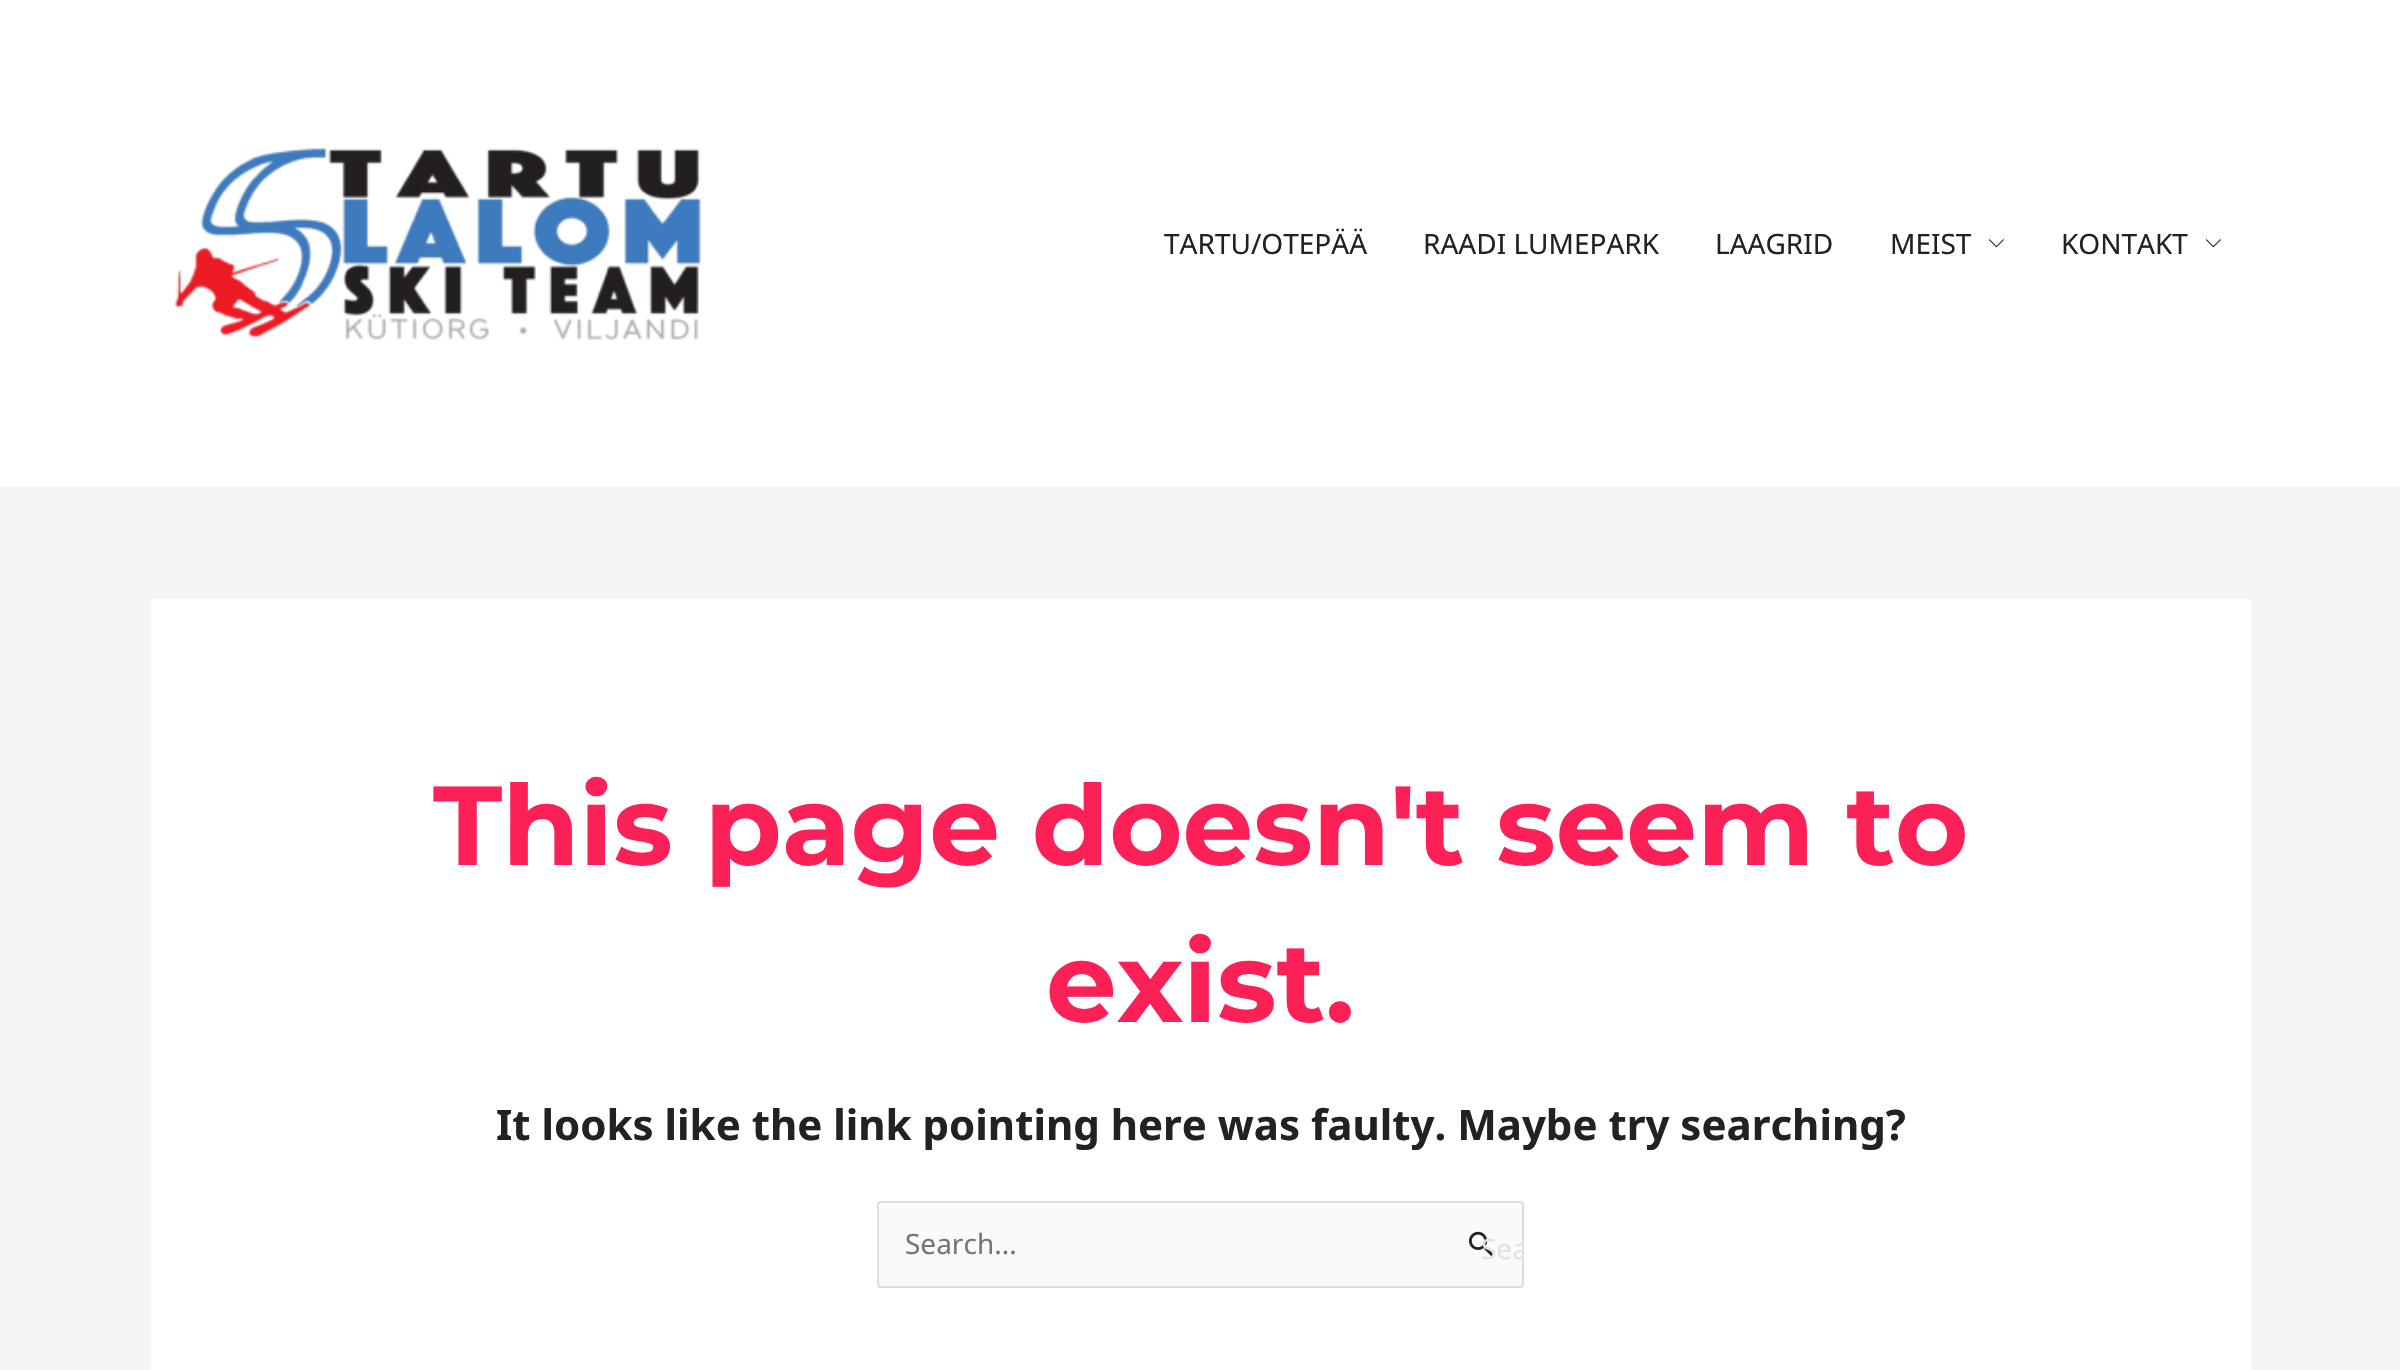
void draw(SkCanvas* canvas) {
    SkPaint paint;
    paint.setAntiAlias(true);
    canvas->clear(0xFFF5F5F5);
    paint.setColor(0xFFFFFFFF);
    canvas->drawRect(SkRect::MakeXYWH(0, 0, 2400, 487), paint);
    canvas->drawImageRect(SkImages::DeferredFromEncodedData(SkData::MakeFromFileName("img1.png")), SkRect::MakeXYWH(174, 147, 527, 193), SkSamplingOptions());
    SkFont font1(fontMgr->matchFamilyStyle("Noto Sans", SkFontStyle::Normal()), 28);
    font1.setSubpixel(true);
    paint.setColor(0xFF222222);
    canvas->drawString("TARTU/OTEPÄÄ", 1164, 254, font1, paint);
    canvas->drawString("RAADI LUMEPARK", 1423, 254, font1, paint);
    canvas->drawString("LAAGRID", 1715, 254, font1, paint);
    canvas->drawString("MEIST", 1890, 254, font1, paint);
    canvas->drawImageRect(SkImages::DeferredFromEncodedData(SkData::MakeFromFileName("img2.png")), SkRect::MakeXYWH(1988, 239, 16, 9), SkSamplingOptions());
    canvas->drawString("KONTAKT", 2061, 254, font1, paint);
    canvas->drawImageRect(SkImages::DeferredFromEncodedData(SkData::MakeFromFileName("img2.png")), SkRect::MakeXYWH(2205, 239, 16, 9), SkSamplingOptions());
    paint.setColor(0xFFFFFFFF);
    canvas->drawRect(SkRect::MakeXYWH(151, 599, 2100, 771), paint);
    SkFont font2(fontMgr->matchFamilyStyle("Montserrat", SkFontStyle(100, SkFontStyle::kNormal_Width, SkFontStyle::kUpright_Slant)), 112);
    font2.setSubpixel(true);
    paint.setColor(0xFFFB2056);
    canvas->drawString("This page doesn't seem to", 433, 865, font2, paint);
    canvas->drawString("exist.", 1046, 1022, font2, paint);
    SkFont font3(fontMgr->matchFamilyStyle("Noto Sans", SkFontStyle::Bold()), 42);
    font3.setSubpixel(true);
    paint.setColor(0xFF222222);
    canvas->drawString("It looks like the link pointing here was faulty. Maybe try searching?", 496, 1140, font3, paint);
    paint.setColor(0xFFFAFAFA);
    canvas->drawRoundRect(SkRect::MakeXYWH(878, 1202, 645, 85), 3, 3, paint);
    paint.setStyle(SkPaint::kStroke_Style);
    paint.setStrokeWidth(2);
    paint.setColor(0xFFDDDDDD);
    canvas->drawRoundRect(SkRect::MakeXYWH(878, 1202, 645, 85), 3, 3, paint);
    paint.setStyle(SkPaint::kFill_Style);
    paint.setColor(0xFF757575);
    canvas->drawString("Search...", 905, 1254, font1, paint);
    canvas->drawImageRect(SkImages::DeferredFromEncodedData(SkData::MakeFromFileName("img3.png")), SkRect::MakeXYWH(1469, 1231, 25, 26), SkSamplingOptions());
    canvas->save();
    canvas->clipPath(SkPathBuilder().moveTo(1450, 1201).lineTo(1520, 1201).cubicTo(1522, 1201, 1524, 1203, 1524, 1205).lineTo(1524, 1295).cubicTo(1524, 1297, 1522, 1299, 1520, 1299).lineTo(1450, 1299).cubicTo(1448, 1299, 1446, 1297, 1446, 1295).lineTo(1446, 1205).cubicTo(1446, 1203, 1448, 1201, 1450, 1201).close().detach(), true);
    paint.setColor(0xFFE2E2E2);
    canvas->drawString("Sea", 1481, 1259, font1, paint);
    canvas->restore();
}
